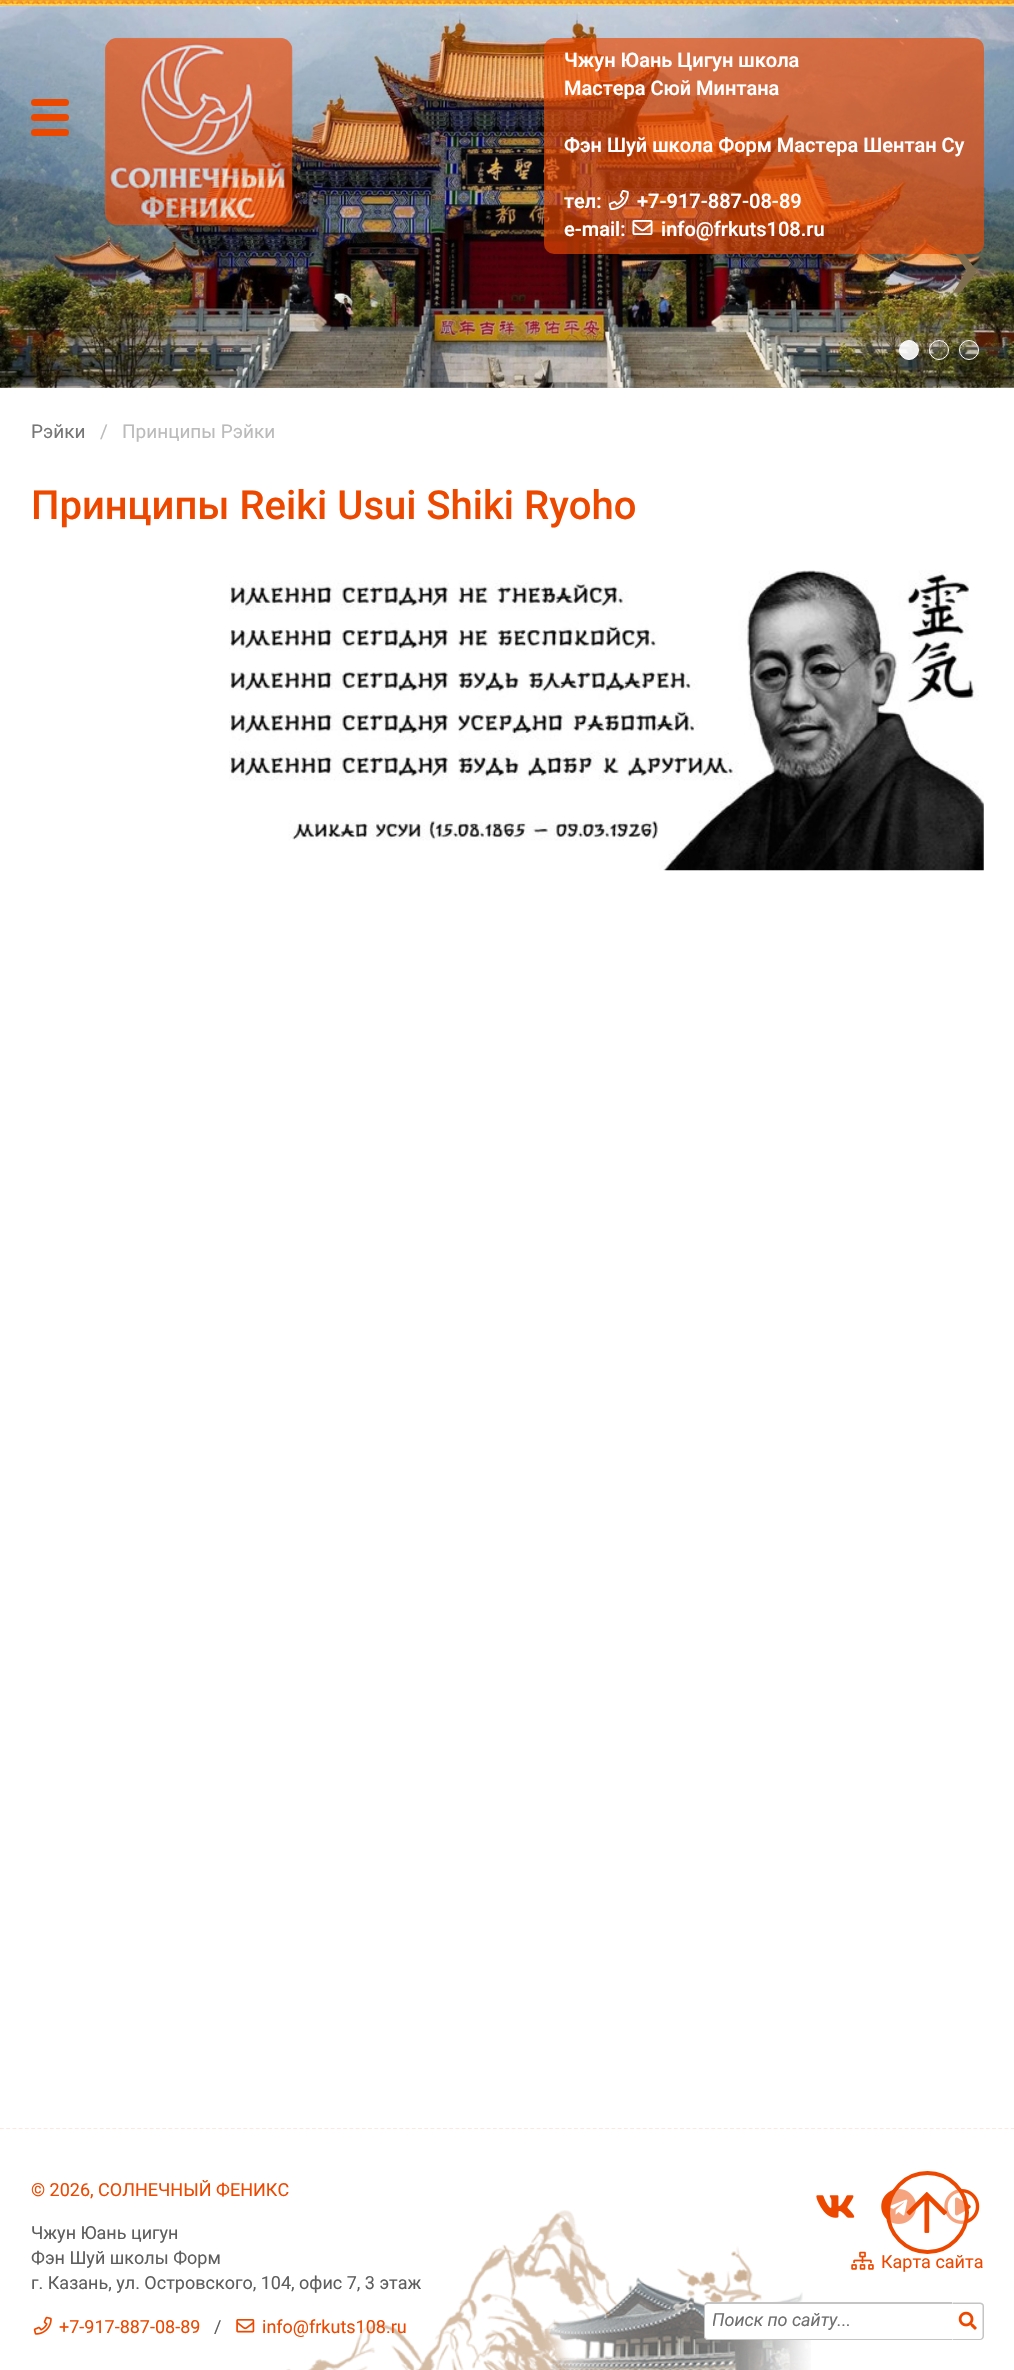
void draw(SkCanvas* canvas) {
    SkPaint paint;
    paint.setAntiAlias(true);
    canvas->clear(0xFFFFFFFF);
    canvas->drawImageRect(SkImages::DeferredFromEncodedData(SkData::MakeFromFileName("img1.png")), SkRect::MakeXYWH(0, 0, 1014, 6), SkSamplingOptions());
    canvas->save();
    canvas->clipRect(SkRect::MakeXYWH(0, 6, 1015, 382));
    paint.setColor(0x80000000);
    paint.setMaskFilter(SkMaskFilter::MakeBlur(kNormal_SkBlurStyle, 5));
    canvas->drawRect(SkRect::MakeXYWH(0, 8, 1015, 381), paint);
    paint.setMaskFilter(nullptr);
    canvas->restore();
    canvas->drawImageRect(SkImages::DeferredFromEncodedData(SkData::MakeFromFileName("img5.png")), SkRect::MakeXYWH(0, 6, 1014, 382), SkSamplingOptions());
    paint.setColor(0xFFEC4800);
    canvas->drawRoundRect(SkRect::MakeXYWH(31, 99, 38, 7), 3.5f, 3.5f, paint);
    canvas->drawRoundRect(SkRect::MakeXYWH(31, 114, 38, 7), 3.5f, 3.5f, paint);
    canvas->drawRoundRect(SkRect::MakeXYWH(31, 129, 38, 7), 3.5f, 3.5f, paint);
    canvas->drawImageRect(SkImages::DeferredFromEncodedData(SkData::MakeFromFileName("img2.png")), SkRect::MakeXYWH(105, 37, 188, 189), SkSamplingOptions());
    SkFont font1(fontMgr->matchFamilyStyle("Roboto", SkFontStyle::Normal()), 111);
    font1.setSubpixel(true);
    paint.setColor(0xFF7F6F50);
    canvas->drawString("›", 948, 301, font1, paint);
    paint.setColor(0xA8EC4800);
    canvas->drawRoundRect(SkRect::MakeXYWH(544, 38, 440, 216), 10, 10, paint);
    SkFont font2(fontMgr->matchFamilyStyle("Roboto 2", SkFontStyle(500, SkFontStyle::kNormal_Width, SkFontStyle::kUpright_Slant)), 20);
    font2.setSubpixel(true);
    paint.setColor(0xFFFFFFFF);
    canvas->drawString("Чжун Юань Цигун школа", 564, 67, font2, paint);
    canvas->drawString("Мастера Сюй Минтана", 564, 95, font2, paint);
    canvas->drawString("Фэн Шуй школа Форм Мастера Шентан Су", 564, 152, font2, paint);
    canvas->drawString("тел:", 564, 208, font2, paint);
    canvas->drawImageRect(SkImages::DeferredFromEncodedData(SkData::MakeFromFileName("img3.png")), SkRect::MakeXYWH(608, 190, 21, 20), SkSamplingOptions());
    canvas->drawString("+7-917-887-08-89", 637, 208, font2, paint);
    canvas->drawString("e-mail:", 564, 236, font2, paint);
    canvas->drawImageRect(SkImages::DeferredFromEncodedData(SkData::MakeFromFileName("img4.png")), SkRect::MakeXYWH(632, 220, 21, 15), SkSamplingOptions());
    canvas->drawString("info@frkuts108.ru", 661, 236, font2, paint);
    paint.setColor(0xE6FFFFFF);
    canvas->drawCircle(909, 350, 9.5f, paint);
    paint.setStyle(SkPaint::kStroke_Style);
    paint.setStrokeWidth(1);
    paint.setColor(0xFFFFFFFF);
    canvas->drawCircle(909, 350, 9.5f, paint);
    paint.setStyle(SkPaint::kFill_Style);
    paint.setColor(0x1AFFFFFF);
    canvas->drawCircle(939, 350, 9.5f, paint);
    paint.setStyle(SkPaint::kStroke_Style);
    paint.setColor(0xFFFFFFFF);
    canvas->drawCircle(939, 350, 9.5f, paint);
    paint.setStyle(SkPaint::kFill_Style);
    paint.setColor(0x1AFFFFFF);
    canvas->drawCircle(969, 350, 9.5f, paint);
    paint.setStyle(SkPaint::kStroke_Style);
    paint.setColor(0xFFFFFFFF);
    canvas->drawCircle(969, 350, 9.5f, paint);
    SkFont font3(fontMgr->matchFamilyStyle("Roboto", SkFontStyle::Normal()), 19);
    font3.setSubpixel(true);
    paint.setStyle(SkPaint::kFill_Style);
    paint.setColor(0xFF767676);
    canvas->drawString("Рэйки", 31, 438, font3, paint);
    paint.setColor(0xFFBBBBBB);
    canvas->drawString("/", 100, 438, font3, paint);
    canvas->drawString("Принципы Рэйки", 122, 438, font3, paint);
    SkFont font4(fontMgr->matchFamilyStyle("Roboto", SkFontStyle(500, SkFontStyle::kNormal_Width, SkFontStyle::kUpright_Slant)), 40);
    font4.setSubpixel(true);
    paint.setColor(0xFFEC4800);
    canvas->drawString("Принципы Reiki Usui Shiki Ryoho", 31, 519, font4, paint);
    canvas->drawImageRect(SkImages::DeferredFromEncodedData(SkData::MakeFromFileName("img6.png")), SkRect::MakeXYWH(229, 570, 755, 301), SkSamplingOptions());
    canvas->drawImageRect(SkImages::DeferredFromEncodedData(SkData::MakeFromFileName("img7.png")), SkRect::MakeXYWH(286, 2210, 525, 160), SkSamplingOptions());
    canvas->save();
    canvas->clipRect(SkRect::MakeXYWH(0, 2128, 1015, 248));
    paint.setStyle(SkPaint::kStroke_Style);
    paint.setStrokeWidth(1.2f);
    paint.setColor(0xFFFAD1BF);
    paint.setPathEffect(SkDashPathEffect::Make({{3.75f, 2.49f}}, 0));
    canvas->drawPath(SkPathBuilder().moveTo(0, 2128).lineTo(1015, 2128).detach(), paint);
    paint.setPathEffect(nullptr);
    canvas->restore();
    SkFont font5(fontMgr->matchFamilyStyle("Roboto", SkFontStyle::Normal()), 18);
    font5.setSubpixel(true);
    paint.setStyle(SkPaint::kFill_Style);
    paint.setColor(0xFFEC4800);
    canvas->drawString("© 2026, СОЛНЕЧНЫЙ ФЕНИКС", 31, 2196, font5, paint);
    paint.setColor(0xFF5E5E5E);
    canvas->drawString("Чжун Юань цигун", 31, 2239, font5, paint);
    canvas->drawString("Фэн Шуй школы Форм", 31, 2264, font5, paint);
    canvas->drawString("г. Казань, ул. Островского, 104, офис 7, 3 этаж", 31, 2289, font5, paint);
    canvas->drawImageRect(SkImages::DeferredFromEncodedData(SkData::MakeFromFileName("img8.png")), SkRect::MakeXYWH(33, 2316, 19, 19), SkSamplingOptions());
    paint.setColor(0xFFEC4800);
    canvas->drawString("+7-917-887-08-89", 59, 2333, font5, paint);
    paint.setColor(0xFF5E5E5E);
    canvas->drawString("/", 214, 2333, font5, paint);
    canvas->drawImageRect(SkImages::DeferredFromEncodedData(SkData::MakeFromFileName("img9.png")), SkRect::MakeXYWH(236, 2319, 19, 14), SkSamplingOptions());
    paint.setColor(0xFFEC4800);
    canvas->drawString("info@frkuts108.ru", 262, 2333, font5, paint);
    canvas->drawImageRect(SkImages::DeferredFromEncodedData(SkData::MakeFromFileName("img10.png")), SkRect::MakeXYWH(816, 2195, 39, 23), SkSamplingOptions());
    canvas->drawImageRect(SkImages::DeferredFromEncodedData(SkData::MakeFromFileName("img11.png")), SkRect::MakeXYWH(881, 2189, 36, 35), SkSamplingOptions());
    canvas->drawImageRect(SkImages::DeferredFromEncodedData(SkData::MakeFromFileName("img12.png")), SkRect::MakeXYWH(944, 2189, 36, 35), SkSamplingOptions());
    canvas->drawImageRect(SkImages::DeferredFromEncodedData(SkData::MakeFromFileName("img13.png")), SkRect::MakeXYWH(851, 2251, 23, 19), SkSamplingOptions());
    canvas->drawString("Карта сайта", 881, 2268, font5, paint);
    paint.setColor(0xFFFFFFFF);
    canvas->drawPath(SkPathBuilder().moveTo(708, 2303).lineTo(953, 2303).lineTo(953, 2340).lineTo(708, 2340).cubicTo(706, 2340, 704, 2338, 704, 2336).lineTo(704, 2307).cubicTo(704, 2305, 706, 2303, 708, 2303).close().detach(), paint);
    paint.setColor(0xFFC4C4C4);
    canvas->drawPath(SkPathBuilder(SkPathFillType::kEvenOdd).moveTo(708, 2302).lineTo(952, 2302).lineTo(952, 2340).lineTo(708, 2340).cubicTo(705, 2340, 704, 2338, 704, 2336).lineTo(704, 2306).cubicTo(704, 2304, 705, 2302, 708, 2302).close().moveTo(708, 2304).lineTo(952, 2304).lineTo(952, 2339).lineTo(708, 2339).cubicTo(706, 2339, 705, 2338, 705, 2336).lineTo(705, 2306).cubicTo(705, 2305, 706, 2304, 708, 2304).close().detach(), paint);
    canvas->save();
    canvas->clipRect(SkRect::MakeXYWH(713, 2310, 215, 21));
    SkFont font6(fontMgr->matchFamilyStyle("Roboto", SkFontStyle::Italic()), 18);
    font6.setSubpixel(true);
    paint.setColor(0xFF707070);
    canvas->drawString("Поиск по сайту...", 712, 2326, font6, paint);
    canvas->restore();
    paint.setColor(0xFFC4C4C4);
    canvas->drawPath(SkPathBuilder(SkPathFillType::kEvenOdd).moveTo(952.5f, 2302.5f).lineTo(980, 2302.5f).cubicTo(982, 2302.5f, 984, 2304, 984, 2306).lineTo(984, 2336).cubicTo(984, 2338.5f, 982, 2340, 980, 2340).lineTo(952.5f, 2340).close().moveTo(952.5f, 2304).lineTo(980, 2304).cubicTo(981.5f, 2304, 982.5f, 2305, 982.5f, 2306).lineTo(982.5f, 2336).cubicTo(982.5f, 2337.5f, 981.5f, 2339, 980, 2339).lineTo(952.5f, 2339).close().detach(), paint);
    canvas->drawImageRect(SkImages::DeferredFromEncodedData(SkData::MakeFromFileName("img14.png")), SkRect::MakeXYWH(958, 2311, 19, 19), SkSamplingOptions());
    paint.setColor(0x80FFFFFF);
    canvas->drawCircle(927.5f, 2212.5f, 39.5f, paint);
    paint.setStyle(SkPaint::kStroke_Style);
    paint.setStrokeWidth(4);
    paint.setColor(0xFFEC4800);
    canvas->drawCircle(927.5f, 2212.5f, 39.5f, paint);
    canvas->drawImageRect(SkImages::DeferredFromEncodedData(SkData::MakeFromFileName("img15.png")), SkRect::MakeXYWH(906, 2192, 41, 41), SkSamplingOptions());
}
